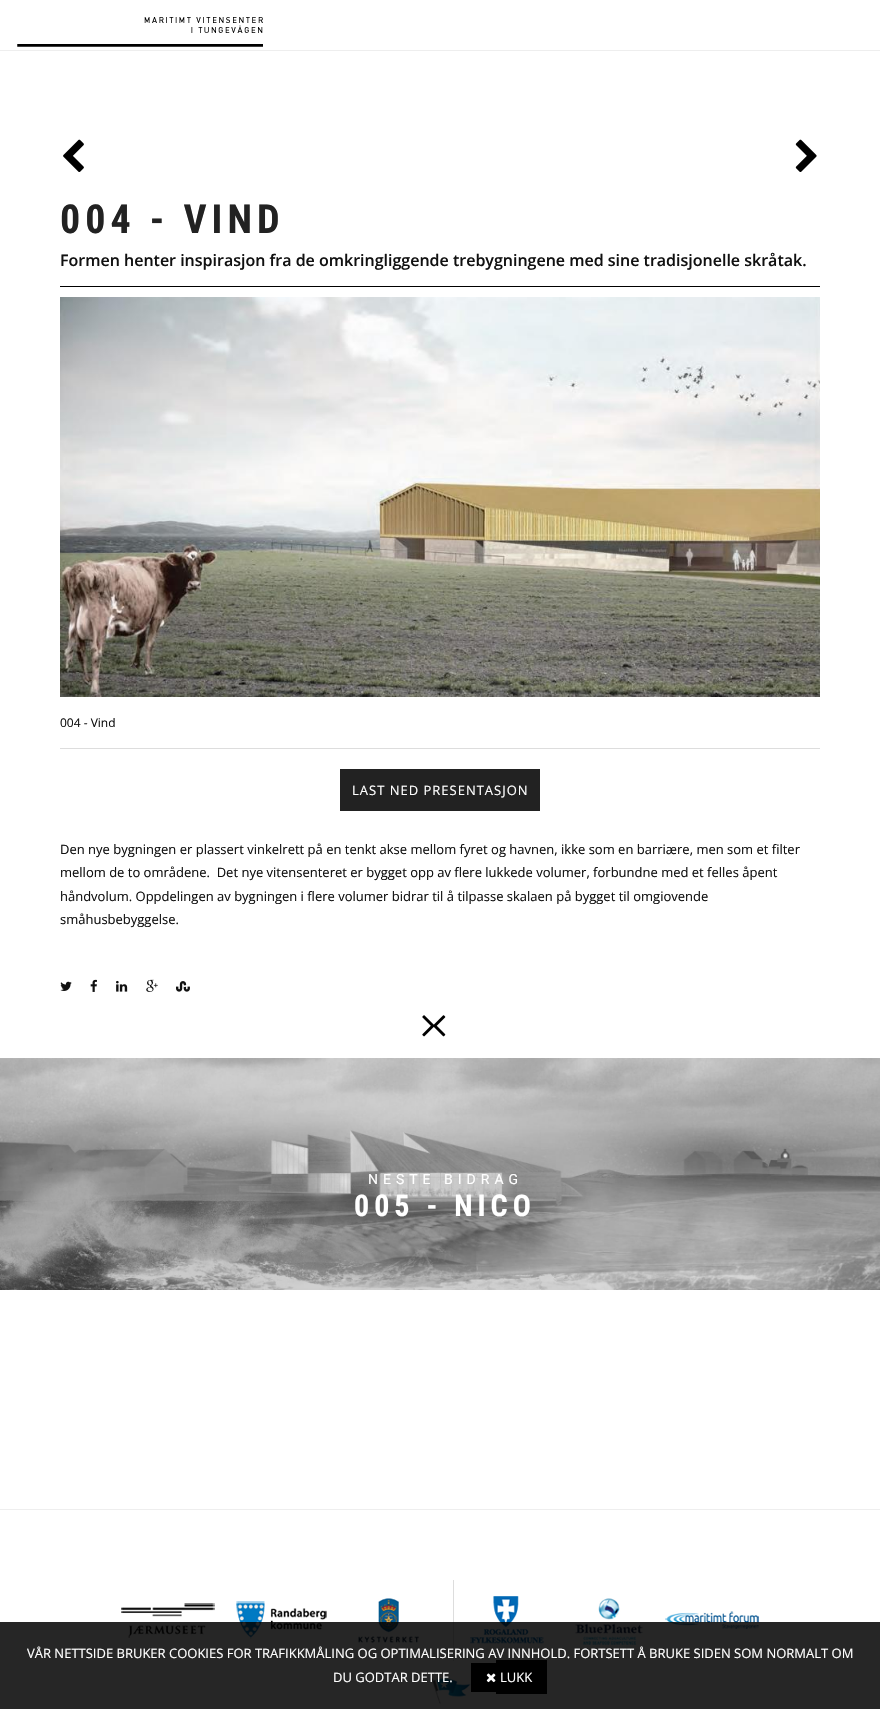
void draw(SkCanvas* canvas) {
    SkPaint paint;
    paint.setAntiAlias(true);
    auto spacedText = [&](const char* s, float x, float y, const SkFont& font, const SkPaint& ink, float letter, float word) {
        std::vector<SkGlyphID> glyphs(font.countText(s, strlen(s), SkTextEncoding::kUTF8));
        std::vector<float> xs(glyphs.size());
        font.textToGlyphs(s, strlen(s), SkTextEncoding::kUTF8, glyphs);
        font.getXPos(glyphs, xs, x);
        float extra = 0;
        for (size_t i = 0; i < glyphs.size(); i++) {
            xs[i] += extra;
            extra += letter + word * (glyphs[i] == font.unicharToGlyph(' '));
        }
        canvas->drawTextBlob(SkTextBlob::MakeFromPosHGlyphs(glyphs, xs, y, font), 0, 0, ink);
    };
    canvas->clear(0xFFFFFFFF);
    paint.setColor(0xFFEEEEEE);
    canvas->drawRect(SkRect::MakeXYWH(0, 50, 880, 1), paint);
    canvas->drawImageRect(SkImages::DeferredFromEncodedData(SkData::MakeFromFileName("img1.png")), SkRect::MakeXYWH(17, 17, 246, 30), SkSamplingOptions());
    canvas->drawImageRect(SkImages::DeferredFromEncodedData(SkData::MakeFromFileName("img2.png")), SkRect::MakeXYWH(63, 139, 21, 33), SkSamplingOptions());
    canvas->drawImageRect(SkImages::DeferredFromEncodedData(SkData::MakeFromFileName("img3.png")), SkRect::MakeXYWH(795, 139, 22, 33), SkSamplingOptions());
    SkFont font1(fontMgr->matchFamilyStyle("Roboto Condensed", SkFontStyle::Bold()), 40);
    font1.setSubpixel(true);
    paint.setColor(0xFF222222);
    spacedText("004 - VIND", 60, 233, font1, paint, 5, 0);
    paint.setColor(0xFF000000);
    canvas->drawRect(SkRect::MakeXYWH(60, 286, 760, 1), paint);
    SkFont font2(fontMgr->matchFamilyStyle("Open Sans", SkFontStyle(600, SkFontStyle::kNormal_Width, SkFontStyle::kUpright_Slant)), 16);
    font2.setSubpixel(true);
    paint.setColor(0xFF111111);
    canvas->drawString("Formen henter inspirasjon fra de omkringliggende trebygningene med sine tradisjonelle skråtak.", 60, 266, font2, paint);
    canvas->drawImageRect(SkImages::DeferredFromEncodedData(SkData::MakeFromFileName("img4.png")), SkRect::MakeXYWH(60, 297, 760, 400), SkSamplingOptions());
    paint.setColor(0xFFDDDDDD);
    canvas->drawRect(SkRect::MakeXYWH(60, 748, 760, 1), paint);
    SkFont font3(fontMgr->matchFamilyStyle("Open Sans", SkFontStyle::Normal()), 12);
    font3.setSubpixel(true);
    paint.setColor(0xFF111111);
    canvas->drawString("004 - Vind", 60, 727, font3, paint);
    paint.setColor(0xFF222222);
    canvas->drawRect(SkRect::MakeXYWH(340, 769, 200, 42), paint);
    SkFont font4(fontMgr->matchFamilyStyle("Open Sans", SkFontStyle::Normal()), 13);
    font4.setSubpixel(true);
    paint.setColor(0xFFFFFFFF);
    spacedText("LAST NED PRESENTASJON", 352, 795, font4, paint, 1, 0);
    paint.setColor(0xFF111111);
    canvas->drawString("Den nye bygningen er plassert vinkelrett på en tenkt akse mellom fyret og havnen, ikke som en barriære, men som et filter", 60, 854, font4, paint);
    canvas->drawString("mellom de to områdene.  Det nye vitensenteret er bygget opp av flere lukkede volumer, forbundne med et felles åpent", 60, 877, font4, paint);
    canvas->drawString("håndvolum. Oppdelingen av bygningen i flere volumer bidrar til å tilpasse skalaen på bygget til omgiovende", 60, 901, font4, paint);
    canvas->drawString("småhusbebyggelse.", 60, 924, font4, paint);
    canvas->drawImageRect(SkImages::DeferredFromEncodedData(SkData::MakeFromFileName("img5.png")), SkRect::MakeXYWH(60, 981, 12, 10), SkSamplingOptions());
    canvas->drawImageRect(SkImages::DeferredFromEncodedData(SkData::MakeFromFileName("img6.png")), SkRect::MakeXYWH(90, 979, 7, 13), SkSamplingOptions());
    canvas->drawImageRect(SkImages::DeferredFromEncodedData(SkData::MakeFromFileName("img7.png")), SkRect::MakeXYWH(116, 980, 12, 12), SkSamplingOptions());
    canvas->drawImageRect(SkImages::DeferredFromEncodedData(SkData::MakeFromFileName("img8.png")), SkRect::MakeXYWH(146, 979, 12, 13), SkSamplingOptions());
    canvas->drawImageRect(SkImages::DeferredFromEncodedData(SkData::MakeFromFileName("img9.png")), SkRect::MakeXYWH(176, 981, 14, 11), SkSamplingOptions());
    canvas->drawImageRect(SkImages::DeferredFromEncodedData(SkData::MakeFromFileName("img10.png")), SkRect::MakeXYWH(422, 1015, 12, 22), SkSamplingOptions());
    canvas->drawImageRect(SkImages::DeferredFromEncodedData(SkData::MakeFromFileName("img11.png")), SkRect::MakeXYWH(433, 1015, 13, 22), SkSamplingOptions());
    canvas->drawImageRect(SkImages::DeferredFromEncodedData(SkData::MakeFromFileName("img12.png")), SkRect::MakeXYWH(0, 1058, 880, 232), SkSamplingOptions());
    SkFont font5(fontMgr->matchFamilyStyle("Roboto", SkFontStyle::Normal()), 14);
    font5.setSubpixel(true);
    paint.setColor(0xFFFFFFFF);
    spacedText("NESTE BIDRAG", 368, 1184, font5, paint, 5, 0);
    SkFont font6(fontMgr->matchFamilyStyle("Roboto Condensed", SkFontStyle::Bold()), 30);
    font6.setSubpixel(true);
    spacedText("005 - NICO", 354, 1216, font6, paint, 5, 0);
    paint.setColor(0xFFEEEEEE);
    canvas->drawRect(SkRect::MakeXYWH(0, 1509, 880, 1), paint);
    canvas->drawImageRect(SkImages::DeferredFromEncodedData(SkData::MakeFromFileName("img13.png")), SkRect::MakeXYWH(121, 1603, 94, 35), SkSamplingOptions());
    canvas->drawImageRect(SkImages::DeferredFromEncodedData(SkData::MakeFromFileName("img14.png")), SkRect::MakeXYWH(236, 1601, 91, 38), SkSamplingOptions());
    paint.setColor(0xFFDDDDDD);
    canvas->drawRect(SkRect::MakeXYWH(453, 1580, 1, 81), paint);
    canvas->drawImageRect(SkImages::DeferredFromEncodedData(SkData::MakeFromFileName("img15.png")), SkRect::MakeXYWH(358, 1598, 61, 45), SkSamplingOptions());
    canvas->drawImageRect(SkImages::DeferredFromEncodedData(SkData::MakeFromFileName("img16.png")), SkRect::MakeXYWH(470, 1596, 74, 48), SkSamplingOptions());
    canvas->drawImageRect(SkImages::DeferredFromEncodedData(SkData::MakeFromFileName("img17.png")), SkRect::MakeXYWH(575, 1598, 68, 47), SkSamplingOptions());
    canvas->drawImageRect(SkImages::DeferredFromEncodedData(SkData::MakeFromFileName("img18.png")), SkRect::MakeXYWH(665, 1611, 94, 18), SkSamplingOptions());
    canvas->drawImageRect(SkImages::DeferredFromEncodedData(SkData::MakeFromFileName("img19.png")), SkRect::MakeXYWH(431, 1678, 40, 26), SkSamplingOptions());
    paint.setColor(0xD9000000);
    canvas->drawRect(SkRect::MakeXYWH(0, 1622, 880, 87), paint);
    paint.setColor(0xFFFFFFFF);
    canvas->drawString("VÅR NETTSIDE BRUKER COOKIES FOR TRAFIKKMÅLING OG OPTIMALISERING AV INNHOLD. FORTSETT Å BRUKE SIDEN SOM NORMALT OM", 27, 1658, font4, paint);
    canvas->drawString("DU GODTAR DETTE.", 333, 1682, font4, paint);
    paint.setColor(0xFF000000);
    canvas->drawRect(SkRect::MakeXYWH(471, 1663, 25, 29), paint);
    canvas->drawRect(SkRect::MakeXYWH(496, 1660, 51, 34), paint);
    canvas->drawImageRect(SkImages::DeferredFromEncodedData(SkData::MakeFromFileName("img20.png")), SkRect::MakeXYWH(486, 1673, 10, 10), SkSamplingOptions());
    paint.setColor(0xFFFFFFFF);
    canvas->drawString("LUKK", 500, 1682, font4, paint);
}
